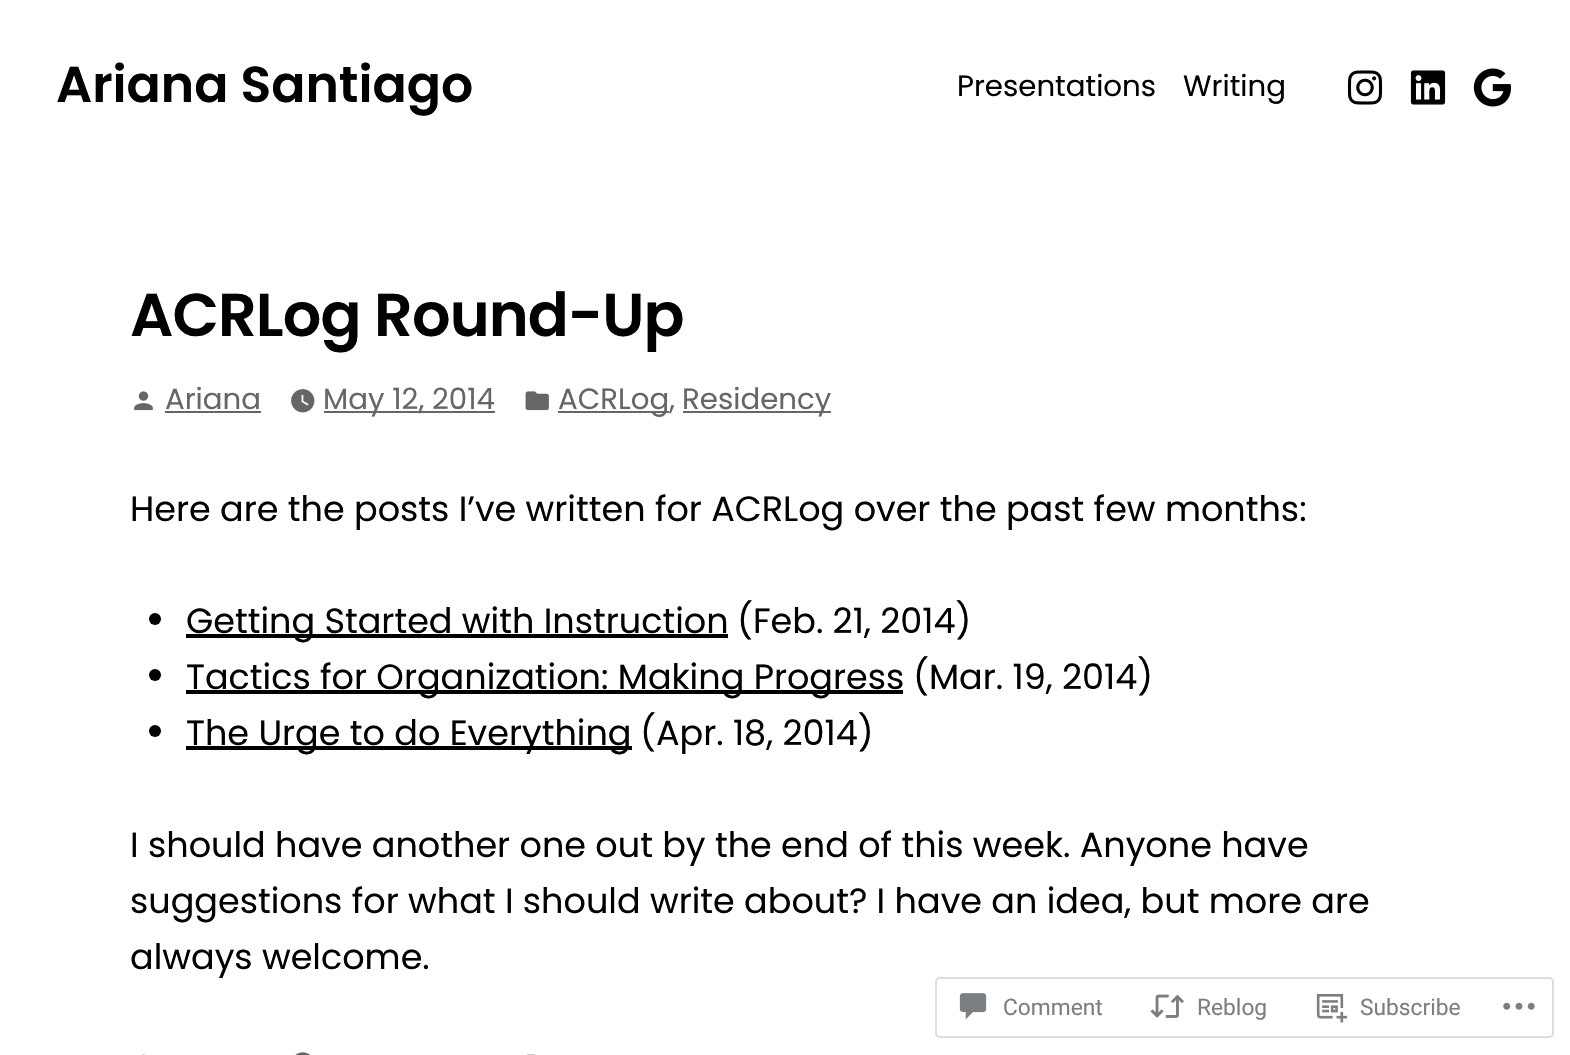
void draw(SkCanvas* canvas) {
    SkPaint paint;
    paint.setAntiAlias(true);
    auto spacedText = [&](const char* s, float x, float y, const SkFont& font, const SkPaint& ink, float letter, float word) {
        std::vector<SkGlyphID> glyphs(font.countText(s, strlen(s), SkTextEncoding::kUTF8));
        std::vector<float> xs(glyphs.size());
        font.textToGlyphs(s, strlen(s), SkTextEncoding::kUTF8, glyphs);
        font.getXPos(glyphs, xs, x);
        float extra = 0;
        for (size_t i = 0; i < glyphs.size(); i++) {
            xs[i] += extra;
            extra += letter + word * (glyphs[i] == font.unicharToGlyph(' '));
        }
        canvas->drawTextBlob(SkTextBlob::MakeFromPosHGlyphs(glyphs, xs, y, font), 0, 0, ink);
    };
    canvas->clear(0xFFFFFFFF);
    SkFont font1(fontMgr->matchFamilyStyle("Poppins", SkFontStyle(600, SkFontStyle::kNormal_Width, SkFontStyle::kUpright_Slant)), 50.5f);
    font1.setSubpixel(true);
    paint.setColor(0xFF010101);
    canvas->drawString("Ariana Santiago", 56, 102, font1, paint);
    SkFont font2(fontMgr->matchFamilyStyle("Poppins", SkFontStyle::Normal()), 29.25f);
    font2.setSubpixel(true);
    canvas->drawString("Presentations", 957, 96, font2, paint);
    canvas->drawString("Writing", 1183, 96, font2, paint);
    canvas->drawImageRect(SkImages::DeferredFromEncodedData(SkData::MakeFromFileName("img1.png")), SkRect::MakeXYWH(1347, 70, 36, 35), SkSamplingOptions());
    canvas->drawImageRect(SkImages::DeferredFromEncodedData(SkData::MakeFromFileName("img2.png")), SkRect::MakeXYWH(1410, 70, 36, 35), SkSamplingOptions());
    canvas->drawImageRect(SkImages::DeferredFromEncodedData(SkData::MakeFromFileName("img3.png")), SkRect::MakeXYWH(1473, 68, 38, 39), SkSamplingOptions());
    SkFont font3(fontMgr->matchFamilyStyle("Poppins", SkFontStyle(600, SkFontStyle::kNormal_Width, SkFontStyle::kUpright_Slant)), 60.5f);
    font3.setSubpixel(true);
    spacedText("ACRLog Round-Up", 130, 336, font3, paint, -0.9f, 0);
    canvas->drawImageRect(SkImages::DeferredFromEncodedData(SkData::MakeFromFileName("img4.png")), SkRect::MakeXYWH(134, 391, 19, 20), SkSamplingOptions());
    paint.setColor(0xFF666666);
    canvas->drawString("Ariana", 165, 409, font2, paint);
    canvas->drawRect(SkRect::MakeXYWH(165, 411, 96, 2), paint);
    canvas->drawImageRect(SkImages::DeferredFromEncodedData(SkData::MakeFromFileName("img5.png")), SkRect::MakeXYWH(291, 389, 24, 24), SkSamplingOptions());
    canvas->drawRect(SkRect::MakeXYWH(324, 411, 171, 2), paint);
    canvas->drawString("May 12, 2014", 323, 409, font2, paint);
    canvas->drawImageRect(SkImages::DeferredFromEncodedData(SkData::MakeFromFileName("img6.png")), SkRect::MakeXYWH(525, 391, 24, 20), SkSamplingOptions());
    canvas->drawRect(SkRect::MakeXYWH(558, 411, 111, 2), paint);
    canvas->drawString("ACRLog,", 558, 409, font2, paint);
    canvas->drawRect(SkRect::MakeXYWH(683, 411, 148, 2), paint);
    canvas->drawString("Residency", 682, 409, font2, paint);
    SkFont font4(fontMgr->matchFamilyStyle("Poppins", SkFontStyle::Normal()), 35);
    font4.setSubpixel(true);
    paint.setColor(0xFF010101);
    canvas->drawString("Here are the posts I’ve written for ACRLog over the past few months:", 130, 521, font4, paint);
    canvas->drawCircle(155, 619, 6, paint);
    paint.setColor(0xFF000000);
    canvas->drawRect(SkRect::MakeXYWH(186, 634, 542, 4), paint);
    paint.setColor(0xFF010101);
    canvas->drawString("Getting Started with Instruction", 186, 633, font4, paint);
    canvas->drawString("(Feb. 21, 2014)", 737, 633, font4, paint);
    canvas->drawCircle(155, 675, 6, paint);
    paint.setColor(0xFF000000);
    canvas->drawRect(SkRect::MakeXYWH(186, 690, 717, 4), paint);
    paint.setColor(0xFF010101);
    canvas->drawString("Tactics for Organization: Making Progress", 186, 689, font4, paint);
    canvas->drawString("(Mar. 19, 2014)", 913, 689, font4, paint);
    canvas->drawCircle(155, 731, 6, paint);
    paint.setColor(0xFF000000);
    canvas->drawRect(SkRect::MakeXYWH(186, 746, 446, 4), paint);
    paint.setColor(0xFF010101);
    canvas->drawString("The Urge to do Everything", 186, 745, font4, paint);
    canvas->drawString("(Apr. 18, 2014)", 640, 745, font4, paint);
    canvas->drawString("I should have another one out by the end of this week. Anyone have", 130, 857, font4, paint);
    canvas->drawString("suggestions for what I should write about? I have an idea, but more are", 130, 913, font4, paint);
    canvas->drawString("always welcome.", 130, 969, font4, paint);
    canvas->drawImageRect(SkImages::DeferredFromEncodedData(SkData::MakeFromFileName("img7.png")), SkRect::MakeXYWH(142, 1054, 3, 1), SkSamplingOptions());
    canvas->drawImageRect(SkImages::DeferredFromEncodedData(SkData::MakeFromFileName("img8.png")), SkRect::MakeXYWH(295, 1052, 15, 3), SkSamplingOptions());
    canvas->drawImageRect(SkImages::DeferredFromEncodedData(SkData::MakeFromFileName("img9.png")), SkRect::MakeXYWH(527, 1054, 9, 1), SkSamplingOptions());
    paint.setStyle(SkPaint::kStroke_Style);
    paint.setStrokeWidth(2);
    paint.setColor(0xFFDDDDDF);
    canvas->drawRoundRect(SkRect::MakeXYWH(936, 978, 617, 59), 4, 4, paint);
    canvas->drawImageRect(SkImages::DeferredFromEncodedData(SkData::MakeFromFileName("img10.png")), SkRect::MakeXYWH(959, 993, 28, 27), SkSamplingOptions());
    SkFont font5(fontMgr->matchFamilyStyle("Roboto", SkFontStyle::Normal()), 22.75f);
    font5.setSubpixel(true);
    paint.setStyle(SkPaint::kFill_Style);
    paint.setColor(0xFF7B7F85);
    canvas->drawString("Comment", 1003, 1015, font5, paint);
    canvas->drawImageRect(SkImages::DeferredFromEncodedData(SkData::MakeFromFileName("img11.png")), SkRect::MakeXYWH(1150, 994, 34, 24), SkSamplingOptions());
    canvas->drawString("Reblog", 1197, 1015, font5, paint);
    canvas->drawImageRect(SkImages::DeferredFromEncodedData(SkData::MakeFromFileName("img12.png")), SkRect::MakeXYWH(1316, 994, 32, 29), SkSamplingOptions());
    canvas->drawString("Subscribe", 1360, 1015, font5, paint);
    canvas->drawImageRect(SkImages::DeferredFromEncodedData(SkData::MakeFromFileName("img13.png")), SkRect::MakeXYWH(1503, 1002, 32, 8), SkSamplingOptions());
}
